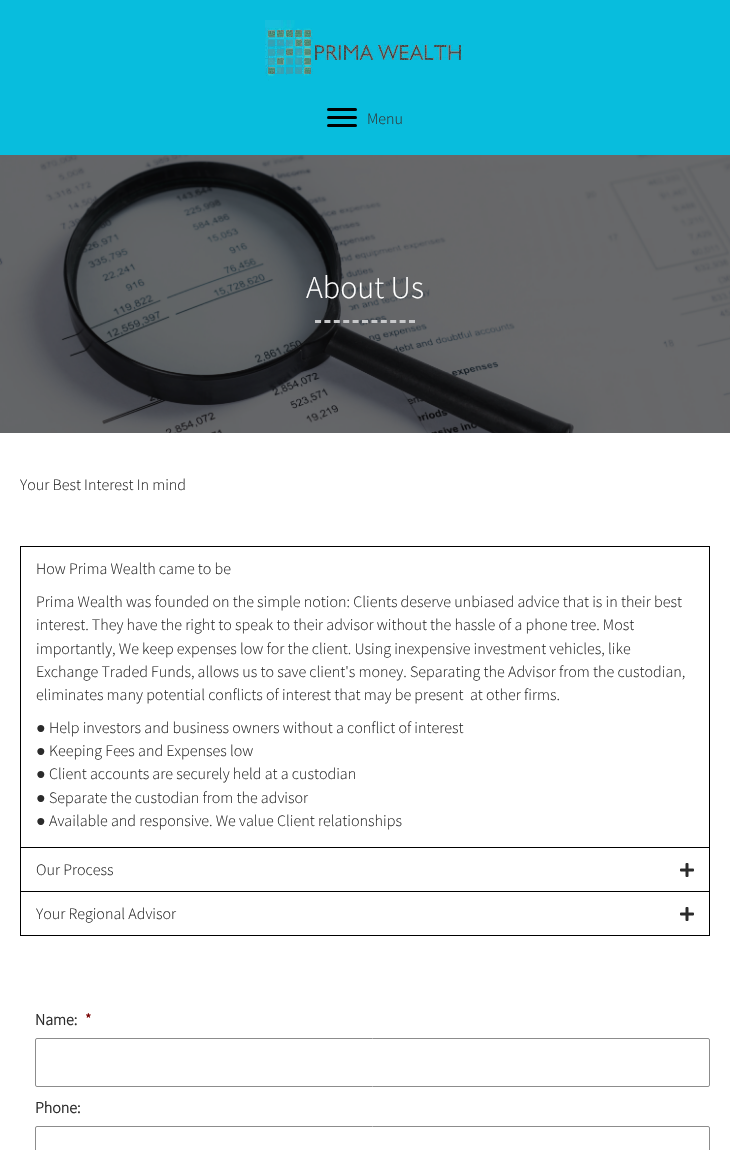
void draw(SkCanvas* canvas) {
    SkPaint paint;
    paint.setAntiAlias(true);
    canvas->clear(0xFFFFFFFF);
    paint.setColor(0xFF08BDDD);
    canvas->drawRect(SkRect::MakeXYWH(0, 0, 730, 155), paint);
    canvas->drawImageRect(SkImages::DeferredFromEncodedData(SkData::MakeFromFileName("img1.png")), SkRect::MakeXYWH(265, 20, 199, 61), SkSamplingOptions());
    paint.setColor(0xFF000000);
    canvas->drawRoundRect(SkRect::MakeXYWH(327, 116, 30, 3), 1.5f, 1.5f, paint);
    canvas->drawRoundRect(SkRect::MakeXYWH(327, 108, 30, 3), 1.5f, 1.5f, paint);
    canvas->drawRoundRect(SkRect::MakeXYWH(327, 124, 30, 3), 1.5f, 1.5f, paint);
    SkFont font1(fontMgr->matchFamilyStyle("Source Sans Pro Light", SkFontStyle(300, SkFontStyle::kNormal_Width, SkFontStyle::kUpright_Slant)), 16);
    font1.setSubpixel(true);
    paint.setColor(0xFF333333);
    canvas->drawString("Menu", 367, 124, font1, paint);
    canvas->drawImageRect(SkImages::DeferredFromEncodedData(SkData::MakeFromFileName("img2.png")), SkRect::MakeXYWH(0, 155, 730, 278), SkSamplingOptions());
    SkFont font2(fontMgr->matchFamilyStyle("Source Sans Pro Light", SkFontStyle(300, SkFontStyle::kNormal_Width, SkFontStyle::kUpright_Slant)), 32);
    font2.setSubpixel(true);
    paint.setColor(0xFFFFFFFF);
    canvas->drawString("About Us", 306, 298, font2, paint);
    paint.setStyle(SkPaint::kStroke_Style);
    paint.setStrokeWidth(3);
    paint.setColor(0xFFC7C8CA);
    paint.setPathEffect(SkDashPathEffect::Make({{6, 3.4f}}, 0));
    canvas->drawPath(SkPathBuilder().moveTo(315, 321.5f).lineTo(415, 321.5f).detach(), paint);
    paint.setPathEffect(nullptr);
    paint.setStyle(SkPaint::kFill_Style);
    paint.setColor(0xFF2B2B2B);
    canvas->drawString("Your Best Interest In mind", 20, 490, font1, paint);
    paint.setStyle(SkPaint::kStroke_Style);
    paint.setStrokeWidth(1);
    paint.setColor(0xFF000000);
    canvas->drawRect(SkRect::MakeXYWH(20.5f, 546.5f, 689, 389), paint);
    paint.setStyle(SkPaint::kFill_Style);
    canvas->drawRect(SkRect::MakeXYWH(21, 847, 688, 1), paint);
    paint.setColor(0xFF2B2B2B);
    canvas->drawString("How Prima Wealth came to be", 36, 574, font1, paint);
    canvas->drawString("Prima Wealth was founded on the simple notion: Clients deserve unbiased advice that is in their best", 36, 607, font1, paint);
    canvas->drawString("interest. They have the right to speak to their advisor without the hassle of a phone tree. Most", 36, 630, font1, paint);
    canvas->drawString("importantly, We keep expenses low for the client. Using inexpensive investment vehicles, like", 36, 654, font1, paint);
    canvas->drawString("Exchange Traded Funds, allows us to save client's money. Separating the Advisor from the custodian,", 36, 677, font1, paint);
    canvas->drawString("eliminates many potential conflicts of interest that may be present  at other firms.", 36, 700, font1, paint);
    SkFont font3(fontMgr->matchFamilyStyle("Liberation Sans", SkFontStyle::Normal()), 16);
    font3.setSubpixel(true);
    canvas->drawString("●", 36, 733, font3, paint);
    canvas->drawString("Help investors and business owners without a conflict of interest", 49, 733, font1, paint);
    canvas->drawString("●", 36, 756, font3, paint);
    canvas->drawString("Keeping Fees and Expenses low", 49, 756, font1, paint);
    canvas->drawString("●", 36, 779, font3, paint);
    canvas->drawString("Client accounts are securely held at a custodian", 49, 779, font1, paint);
    canvas->drawString("●", 36, 803, font3, paint);
    canvas->drawString("Separate the custodian from the advisor", 49, 803, font1, paint);
    canvas->drawString("●", 36, 826, font3, paint);
    canvas->drawString("Available and responsive. We value Client relationships", 49, 826, font1, paint);
    paint.setColor(0xFF000000);
    canvas->drawRect(SkRect::MakeXYWH(21, 891, 688, 1), paint);
    paint.setColor(0xFF2B2B2B);
    canvas->drawString("Our Process", 36, 875, font1, paint);
    canvas->drawImageRect(SkImages::DeferredFromEncodedData(SkData::MakeFromFileName("img3.png")), SkRect::MakeXYWH(680, 863, 14, 14), SkSamplingOptions());
    canvas->drawString("Your Regional Advisor", 36, 919, font1, paint);
    canvas->drawImageRect(SkImages::DeferredFromEncodedData(SkData::MakeFromFileName("img3.png")), SkRect::MakeXYWH(680, 907, 14, 14), SkSamplingOptions());
    SkFont font4(fontMgr->matchFamilyStyle("Source Sans Pro Light", SkFontStyle::Bold()), 16);
    font4.setSubpixel(true);
    canvas->drawString("Name:", 35, 1025, font4, paint);
    paint.setColor(0xFF790000);
    canvas->drawString("*", 85, 1025, font4, paint);
    paint.setStyle(SkPaint::kStroke_Style);
    paint.setColor(0xFF8C8C8C);
    canvas->drawRoundRect(SkRect::MakeXYWH(35.5f, 1038.5f, 674, 48), 1.5f, 1.5f, paint);
    paint.setStyle(SkPaint::kFill_Style);
    paint.setColor(0xFF2B2B2B);
    canvas->drawString("Phone:", 35, 1113, font4, paint);
    paint.setStyle(SkPaint::kStroke_Style);
    paint.setColor(0xFF8C8C8C);
    canvas->drawRoundRect(SkRect::MakeXYWH(35.5f, 1126.5f, 674, 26), 1.5f, 1.5f, paint);
}
